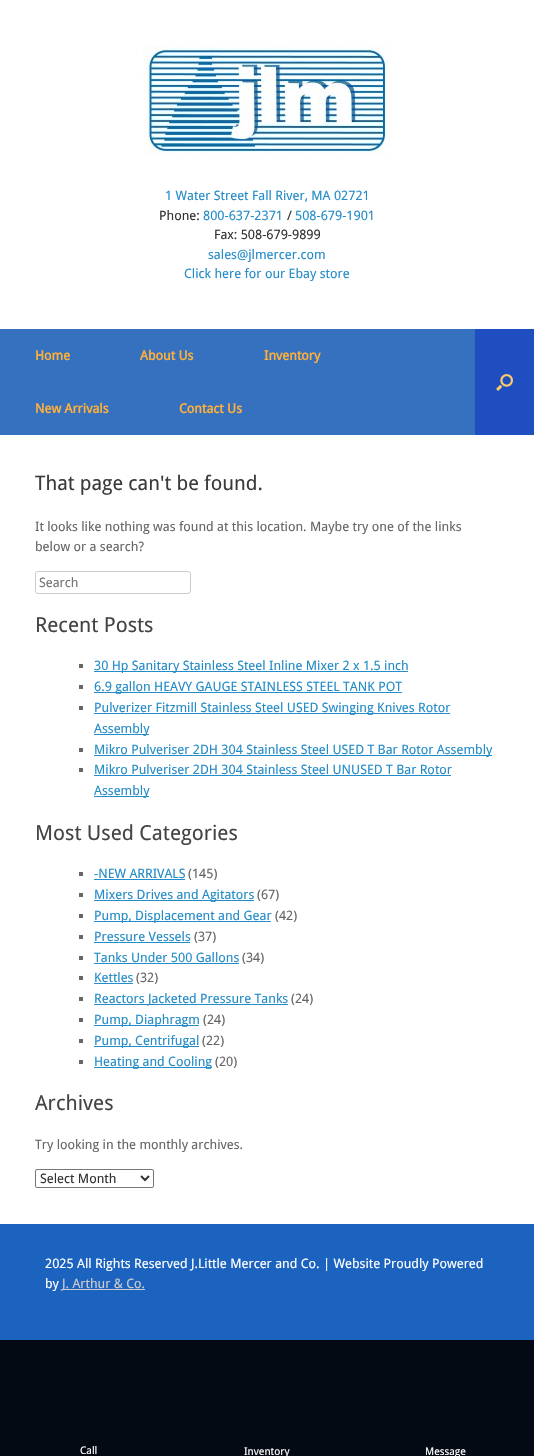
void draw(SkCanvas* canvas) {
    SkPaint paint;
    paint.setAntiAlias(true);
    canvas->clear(0xFF1C63BF);
    paint.setColor(0xFFFFFFFF);
    canvas->drawRect(SkRect::MakeXYWH(0, 0, 534, 329), paint);
    canvas->drawImageRect(SkImages::DeferredFromEncodedData(SkData::MakeFromFileName("img1.png")), SkRect::MakeXYWH(143, 45, 248, 111), SkSamplingOptions());
    SkFont font1(fontMgr->matchFamilyStyle("Droid Sans", SkFontStyle::Normal()), 13);
    font1.setSubpixel(true);
    paint.setColor(0xFF248CC8);
    canvas->drawString("1 Water Street Fall River, MA 02721", 165, 200, font1, paint);
    paint.setColor(0xFF333333);
    canvas->drawString("Phone:", 159, 220, font1, paint);
    paint.setColor(0xFF248CC8);
    canvas->drawString("800-637-2371", 203, 220, font1, paint);
    paint.setColor(0xFF333333);
    canvas->drawString("/", 287, 220, font1, paint);
    paint.setColor(0xFF248CC8);
    canvas->drawString("508-679-1901", 295, 220, font1, paint);
    paint.setColor(0xFF333333);
    canvas->drawString("Fax: 508-679-9899", 214, 239, font1, paint);
    paint.setColor(0xFF248CC8);
    canvas->drawString("sales@jlmercer.com", 208, 259, font1, paint);
    canvas->drawString("Click here for our Ebay store", 184, 278, font1, paint);
    paint.setColor(0xFF3571BF);
    canvas->drawRect(SkRect::MakeXYWH(0, 329, 475, 106), paint);
    SkFont font2(fontMgr->matchFamilyStyle("Droid Sans", SkFontStyle::Bold()), 13);
    font2.setSubpixel(true);
    paint.setColor(0xFFFFB03A);
    canvas->drawString("Home", 35, 360, font2, paint);
    canvas->drawString("About Us", 140, 360, font2, paint);
    canvas->drawString("Inventory", 264, 360, font2, paint);
    canvas->drawString("New Arrivals", 35, 413, font2, paint);
    canvas->drawString("Contact Us", 179, 413, font2, paint);
    paint.setColor(0xFF1E4EBF);
    canvas->drawRect(SkRect::MakeXYWH(475, 329, 59, 106), paint);
    canvas->drawImageRect(SkImages::DeferredFromEncodedData(SkData::MakeFromFileName("img2.png")), SkRect::MakeXYWH(496, 374, 17, 17), SkSamplingOptions());
    paint.setColor(0xFFFFFFFF);
    canvas->drawRect(SkRect::MakeXYWH(0, 435, 534, 789), paint);
    SkFont font3(fontMgr->matchFamilyStyle("Droid Sans", SkFontStyle::Normal()), 20);
    font3.setSubpixel(true);
    paint.setColor(0xFF3B3B3B);
    canvas->drawString("That page can't be found.", 35, 490, font3, paint);
    paint.setColor(0xFF666666);
    canvas->drawString("It looks like nothing was found at this location. Maybe try one of the links", 35, 531, font1, paint);
    canvas->drawString("below or a search?", 35, 551, font1, paint);
    paint.setStyle(SkPaint::kStroke_Style);
    paint.setStrokeWidth(1);
    paint.setColor(0xFFCCCCCC);
    canvas->drawRoundRect(SkRect::MakeXYWH(35.5f, 571.5f, 155, 22), 2.5f, 2.5f, paint);
    paint.setStyle(SkPaint::kFill_Style);
    paint.setColor(0xFF757575);
    canvas->drawString("Search", 39, 587, font1, paint);
    SkFont font4(fontMgr->matchFamilyStyle("Droid Sans", SkFontStyle::Normal()), 20.75f);
    font4.setSubpixel(true);
    paint.setColor(0xFF444444);
    canvas->drawString("Recent Posts", 35, 632, font4, paint);
    paint.setColor(0xFF666666);
    canvas->drawRect(SkRect::MakeXYWH(79, 664, 4, 4), paint);
    paint.setColor(0xFF248CC8);
    canvas->drawRect(SkRect::MakeXYWH(94, 671, 314, 1), paint);
    canvas->drawString("30 Hp Sanitary Stainless Steel Inline Mixer 2 x 1.5 inch", 94, 670, font1, paint);
    paint.setColor(0xFF666666);
    canvas->drawRect(SkRect::MakeXYWH(79, 685, 4, 4), paint);
    paint.setColor(0xFF248CC8);
    canvas->drawRect(SkRect::MakeXYWH(94, 692, 308, 1), paint);
    canvas->drawString("6.9 gallon HEAVY GAUGE STAINLESS STEEL TANK POT", 94, 691, font1, paint);
    paint.setColor(0xFF666666);
    canvas->drawRect(SkRect::MakeXYWH(79, 706, 4, 4), paint);
    paint.setColor(0xFF248CC8);
    canvas->drawRect(SkRect::MakeXYWH(94, 713, 356, 1), paint);
    canvas->drawString("Pulverizer Fitzmill Stainless Steel USED Swinging Knives Rotor", 94, 712, font1, paint);
    canvas->drawRect(SkRect::MakeXYWH(94, 734, 55, 1), paint);
    canvas->drawString("Assembly", 94, 733, font1, paint);
    paint.setColor(0xFF666666);
    canvas->drawRect(SkRect::MakeXYWH(79, 748, 4, 4), paint);
    paint.setColor(0xFF248CC8);
    canvas->drawRect(SkRect::MakeXYWH(94, 755, 398, 1), paint);
    canvas->drawString("Mikro Pulveriser 2DH 304 Stainless Steel USED T Bar Rotor Assembly", 94, 754, font1, paint);
    paint.setColor(0xFF666666);
    canvas->drawRect(SkRect::MakeXYWH(79, 768, 4, 4), paint);
    paint.setColor(0xFF248CC8);
    canvas->drawString("Mikro Pulveriser 2DH 304 Stainless Steel UNUSED T Bar Rotor", 94, 774, font1, paint);
    canvas->drawRect(SkRect::MakeXYWH(94, 775, 357, 1), paint);
    canvas->drawRect(SkRect::MakeXYWH(94, 796, 55, 1), paint);
    canvas->drawString("Assembly", 94, 795, font1, paint);
    paint.setColor(0xFF444444);
    canvas->drawString("Most Used Categories", 35, 840, font4, paint);
    paint.setColor(0xFF666666);
    canvas->drawRect(SkRect::MakeXYWH(79, 872, 4, 4), paint);
    paint.setColor(0xFF248CC8);
    canvas->drawString("-NEW ARRIVALS", 94, 878, font1, paint);
    canvas->drawRect(SkRect::MakeXYWH(94, 879, 91, 1), paint);
    paint.setColor(0xFF666666);
    canvas->drawString("(145)", 188, 878, font1, paint);
    canvas->drawRect(SkRect::MakeXYWH(79, 893, 4, 4), paint);
    paint.setColor(0xFF248CC8);
    canvas->drawRect(SkRect::MakeXYWH(94, 900, 160, 1), paint);
    canvas->drawString("Mixers Drives and Agitators", 94, 899, font1, paint);
    paint.setColor(0xFF666666);
    canvas->drawString("(67)", 257, 899, font1, paint);
    canvas->drawRect(SkRect::MakeXYWH(79, 914, 4, 4), paint);
    paint.setColor(0xFF248CC8);
    canvas->drawRect(SkRect::MakeXYWH(94, 921, 177, 1), paint);
    canvas->drawString("Pump, Displacement and Gear", 94, 920, font1, paint);
    paint.setColor(0xFF666666);
    canvas->drawString("(42)", 275, 920, font1, paint);
    canvas->drawRect(SkRect::MakeXYWH(79, 935, 4, 4), paint);
    paint.setColor(0xFF248CC8);
    canvas->drawString("Pressure Vessels", 94, 941, font1, paint);
    canvas->drawRect(SkRect::MakeXYWH(94, 942, 96, 1), paint);
    paint.setColor(0xFF666666);
    canvas->drawString("(37)", 194, 941, font1, paint);
    canvas->drawRect(SkRect::MakeXYWH(79, 956, 4, 4), paint);
    paint.setColor(0xFF248CC8);
    canvas->drawString("Tanks Under 500 Gallons", 94, 962, font1, paint);
    canvas->drawRect(SkRect::MakeXYWH(94, 963, 145, 1), paint);
    paint.setColor(0xFF666666);
    canvas->drawString("(34)", 242, 962, font1, paint);
    canvas->drawRect(SkRect::MakeXYWH(79, 976, 4, 4), paint);
    paint.setColor(0xFF248CC8);
    canvas->drawString("Kettles", 94, 982, font1, paint);
    canvas->drawRect(SkRect::MakeXYWH(94, 983, 39, 1), paint);
    paint.setColor(0xFF666666);
    canvas->drawString("(32)", 136, 982, font1, paint);
    canvas->drawRect(SkRect::MakeXYWH(79, 997, 4, 4), paint);
    paint.setColor(0xFF248CC8);
    canvas->drawRect(SkRect::MakeXYWH(94, 1004, 194, 1), paint);
    canvas->drawString("Reactors Jacketed Pressure Tanks", 94, 1003, font1, paint);
    paint.setColor(0xFF666666);
    canvas->drawString("(24)", 291, 1003, font1, paint);
    canvas->drawRect(SkRect::MakeXYWH(79, 1018, 4, 4), paint);
    paint.setColor(0xFF248CC8);
    canvas->drawRect(SkRect::MakeXYWH(94, 1025, 105, 1), paint);
    canvas->drawString("Pump, Diaphragm", 94, 1024, font1, paint);
    paint.setColor(0xFF666666);
    canvas->drawString("(24)", 203, 1024, font1, paint);
    canvas->drawRect(SkRect::MakeXYWH(79, 1039, 4, 4), paint);
    paint.setColor(0xFF248CC8);
    canvas->drawRect(SkRect::MakeXYWH(94, 1046, 105, 1), paint);
    canvas->drawString("Pump, Centrifugal", 94, 1045, font1, paint);
    paint.setColor(0xFF666666);
    canvas->drawString("(22)", 202, 1045, font1, paint);
    canvas->drawRect(SkRect::MakeXYWH(79, 1060, 4, 4), paint);
    paint.setColor(0xFF248CC8);
    canvas->drawRect(SkRect::MakeXYWH(94, 1067, 118, 1), paint);
    canvas->drawString("Heating and Cooling", 94, 1066, font1, paint);
    paint.setColor(0xFF666666);
    canvas->drawString("(20)", 215, 1066, font1, paint);
    paint.setColor(0xFF444444);
    canvas->drawString("Archives", 35, 1110, font4, paint);
    paint.setColor(0xFF666666);
    canvas->drawString("Try looking in the monthly archives.", 35, 1149, font1, paint);
    paint.setStyle(SkPaint::kStroke_Style);
    paint.setColor(0xFF767676);
    canvas->drawRoundRect(SkRect::MakeXYWH(35.5f, 1169.5f, 118, 18), 1.5f, 1.5f, paint);
    paint.setStrokeWidth(2);
    paint.setColor(0xFF333333);
    canvas->drawPath(SkPathBuilder().moveTo(141, 1176).lineTo(145, 1180).lineTo(149, 1176).detach(), paint);
    paint.setStyle(SkPaint::kFill_Style);
    canvas->drawString("Select Month", 40, 1183, font1, paint);
    paint.setColor(0xFFFFFFFF);
    canvas->drawString("2025 All Rights Reserved J.Little Mercer and Co. | Website Proudly Powered", 45, 1268, font1, paint);
    canvas->drawString("by", 45, 1288, font1, paint);
    paint.setColor(0xFFCCCCCC);
    canvas->drawRect(SkRect::MakeXYWH(62, 1289, 83, 1), paint);
    canvas->drawString("J. Arthur & Co.", 62, 1288, font1, paint);
    paint.setColor(0xFF030A13);
    canvas->drawRect(SkRect::MakeXYWH(0, 1340, 534, 116), paint);
    SkFont font5(fontMgr->matchFamilyStyle("Droid Sans", SkFontStyle::Normal()), 10.5f);
    font5.setSubpixel(true);
    paint.setColor(0xFFFFFFFF);
    canvas->drawString("Call", 80, 1454, font5, paint);
    canvas->drawString("Inventory", 244, 1455, font5, paint);
    canvas->drawString("Message", 425, 1455, font5, paint);
}
